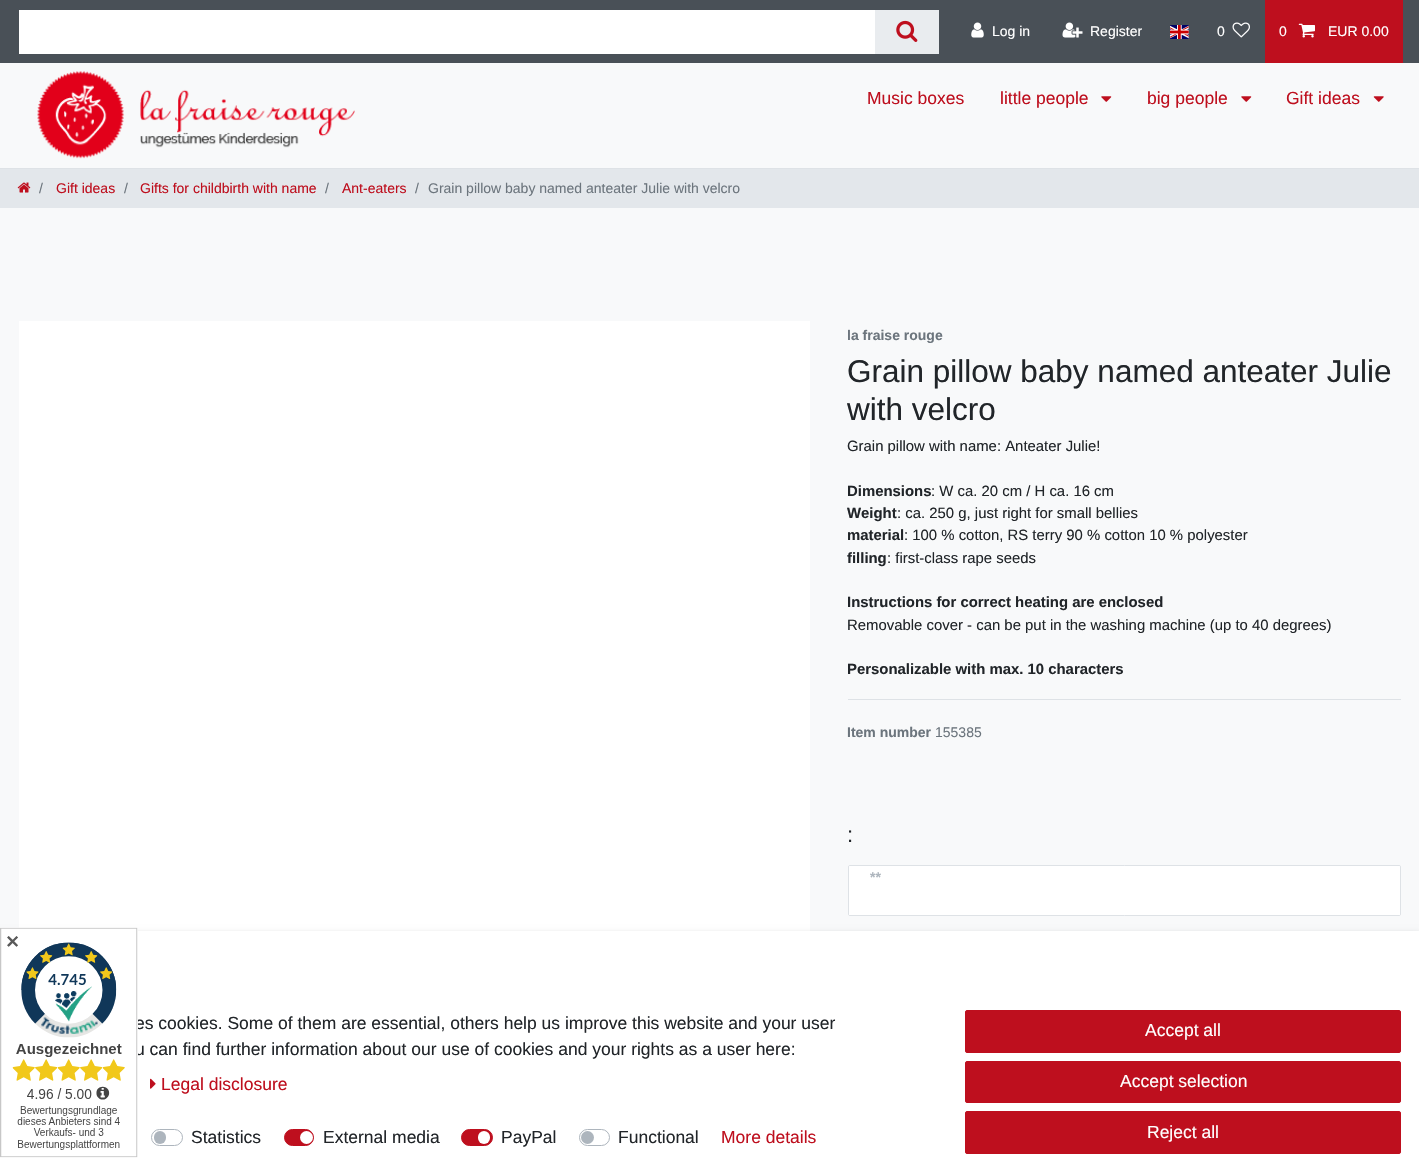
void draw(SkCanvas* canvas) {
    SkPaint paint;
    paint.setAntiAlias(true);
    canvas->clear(0xFFF8F9FA);
    paint.setColor(0xFF495057);
    canvas->drawRect(SkRect::MakeXYWH(0, 0, 1419, 63), paint);
    paint.setColor(0xFFFFFFFF);
    canvas->drawRect(SkRect::MakeXYWH(19, 10, 856, 44), paint);
    paint.setColor(0xFFE9ECEF);
    canvas->drawRect(SkRect::MakeXYWH(875, 10, 64, 44), paint);
    canvas->drawImageRect(SkImages::DeferredFromEncodedData(SkData::MakeFromFileName("img1.png")), SkRect::MakeXYWH(896, 20, 22, 22), SkSamplingOptions());
    canvas->drawImageRect(SkImages::DeferredFromEncodedData(SkData::MakeFromFileName("img2.png")), SkRect::MakeXYWH(971, 22, 13, 16), SkSamplingOptions());
    SkFont font1(fontMgr->matchFamilyStyle("Liberation Sans", SkFontStyle::Normal()), 14);
    font1.setSubpixel(true);
    paint.setColor(0xFFFFFFFF);
    canvas->drawString("Log in", 992, 36, font1, paint);
    canvas->drawImageRect(SkImages::DeferredFromEncodedData(SkData::MakeFromFileName("img3.png")), SkRect::MakeXYWH(1062, 22, 21, 16), SkSamplingOptions());
    canvas->drawString("Register", 1090, 36, font1, paint);
    canvas->drawImageRect(SkImages::DeferredFromEncodedData(SkData::MakeFromFileName("img4.png")), SkRect::MakeXYWH(1170, 25, 19, 14), SkSamplingOptions());
    canvas->drawString("0", 1217, 36, font1, paint);
    canvas->drawImageRect(SkImages::DeferredFromEncodedData(SkData::MakeFromFileName("img5.png")), SkRect::MakeXYWH(1232, 22, 18, 16), SkSamplingOptions());
    paint.setColor(0xFFBE0F1E);
    canvas->drawRect(SkRect::MakeXYWH(1265, 0, 138, 63), paint);
    paint.setColor(0xFFFFFFFF);
    canvas->drawString("0", 1279, 36, font1, paint);
    canvas->drawImageRect(SkImages::DeferredFromEncodedData(SkData::MakeFromFileName("img6.png")), SkRect::MakeXYWH(1298, 23, 17, 15), SkSamplingOptions());
    canvas->drawString("EUR 0.00", 1328, 36, font1, paint);
    paint.setColor(0xFFDEE2E6);
    canvas->drawRect(SkRect::MakeXYWH(0, 168, 1419, 1), paint);
    canvas->drawImageRect(SkImages::DeferredFromEncodedData(SkData::MakeFromFileName("img7.png")), SkRect::MakeXYWH(37, 71, 318, 88), SkSamplingOptions());
    SkFont font2(fontMgr->matchFamilyStyle("Liberation Sans", SkFontStyle::Normal()), 17.5f);
    font2.setSubpixel(true);
    paint.setColor(0xFFBE0F1E);
    canvas->drawString("Music boxes", 867, 104, font2, paint);
    canvas->drawString("little people", 1000, 104, font2, paint);
    canvas->drawImageRect(SkImages::DeferredFromEncodedData(SkData::MakeFromFileName("img8.png")), SkRect::MakeXYWH(1101, 96, 11, 6), SkSamplingOptions());
    canvas->drawString("big people", 1147, 104, font2, paint);
    canvas->drawImageRect(SkImages::DeferredFromEncodedData(SkData::MakeFromFileName("img8.png")), SkRect::MakeXYWH(1241, 96, 11, 6), SkSamplingOptions());
    canvas->drawString("Gift ideas", 1286, 104, font2, paint);
    canvas->drawImageRect(SkImages::DeferredFromEncodedData(SkData::MakeFromFileName("img9.png")), SkRect::MakeXYWH(1373, 96, 11, 6), SkSamplingOptions());
    paint.setColor(0xFFE3E7EB);
    canvas->drawRect(SkRect::MakeXYWH(0, 169, 1419, 39), paint);
    canvas->drawImageRect(SkImages::DeferredFromEncodedData(SkData::MakeFromFileName("img10.png")), SkRect::MakeXYWH(17, 182, 14, 11), SkSamplingOptions());
    paint.setColor(0xFF6C757D);
    canvas->drawString("/", 39, 193, font1, paint);
    paint.setColor(0xFFBE0F1E);
    canvas->drawString("Gift ideas", 56, 193, font1, paint);
    paint.setColor(0xFF6C757D);
    canvas->drawString("/", 124, 193, font1, paint);
    paint.setColor(0xFFBE0F1E);
    canvas->drawString("Gifts for childbirth with name", 140, 193, font1, paint);
    paint.setColor(0xFF6C757D);
    canvas->drawString("/", 325, 193, font1, paint);
    paint.setColor(0xFFBE0F1E);
    canvas->drawString("Ant-eaters", 342, 193, font1, paint);
    paint.setColor(0xFF6C757D);
    canvas->drawString("/", 415, 193, font1, paint);
    canvas->drawString("Grain pillow baby named anteater Julie with velcro", 428, 193, font1, paint);
    paint.setColor(0xFFFFFFFF);
    canvas->drawRect(SkRect::MakeXYWH(19, 321, 791, 610), paint);
    SkFont font3(fontMgr->matchFamilyStyle("Liberation Sans", SkFontStyle::Bold()), 14);
    font3.setSubpixel(true);
    paint.setColor(0xFF6C757D);
    canvas->drawString("la fraise rouge", 847, 340, font3, paint);
    SkFont font4(fontMgr->matchFamilyStyle("Liberation Sans", SkFontStyle::Normal()), 31.5f);
    font4.setSubpixel(true);
    paint.setColor(0xFF212529);
    canvas->drawString("Grain pillow baby named anteater Julie", 847, 382, font4, paint);
    canvas->drawString("with velcro", 847, 420, font4, paint);
    SkFont font5(fontMgr->matchFamilyStyle("Liberation Sans", SkFontStyle::Normal()), 14.9f);
    font5.setSubpixel(true);
    canvas->drawString("Grain pillow with name: Anteater Julie!", 847, 451, font5, paint);
    SkFont font6(fontMgr->matchFamilyStyle("Liberation Sans", SkFontStyle::Bold()), 14.9f);
    font6.setSubpixel(true);
    canvas->drawString("Dimensions", 847, 496, font6, paint);
    canvas->drawString(": W ca. 20 cm / H ca. 16 cm", 931, 496, font5, paint);
    canvas->drawString("Weight", 847, 518, font6, paint);
    canvas->drawString(": ca. 250 g, just right for small bellies", 897, 518, font5, paint);
    canvas->drawString("material", 847, 540, font6, paint);
    canvas->drawString(": 100 % cotton, RS terry 90 % cotton 10 % polyester", 904, 540, font5, paint);
    canvas->drawString("filling", 847, 563, font6, paint);
    canvas->drawString(": first-class rape seeds", 887, 563, font5, paint);
    canvas->drawString("Instructions for correct heating are enclosed", 847, 607, font6, paint);
    canvas->drawString("Removable cover - can be put in the washing machine (up to 40 degrees)", 847, 630, font5, paint);
    canvas->drawString("Personalizable with max. 10 characters", 847, 674, font6, paint);
    paint.setColor(0xFFDEE2E6);
    canvas->drawRect(SkRect::MakeXYWH(848, 699, 553, 1), paint);
    paint.setColor(0xFF6C757D);
    canvas->drawString("Item number", 847, 737, font3, paint);
    canvas->drawString("155385", 935, 737, font1, paint);
    SkFont font7(fontMgr->matchFamilyStyle("Liberation Sans", SkFontStyle::Normal()), 22);
    font7.setSubpixel(true);
    paint.setColor(0xFF212529);
    canvas->drawString(":", 847, 842, font7, paint);
    paint.setStyle(SkPaint::kStroke_Style);
    paint.setStrokeWidth(1);
    paint.setColor(0xFFDEE2E6);
    canvas->drawRoundRect(SkRect::MakeXYWH(848.5f, 865.5f, 552, 50), 1.5f, 1.5f, paint);
    paint.setStyle(SkPaint::kFill_Style);
    paint.setColor(0xFFFFFFFF);
    canvas->drawRoundRect(SkRect::MakeXYWH(849, 866, 551, 49), 0.5f, 0.5f, paint);
    paint.setColor(0xFFADB5BD);
    canvas->drawString("**", 870, 882, font3, paint);
    paint.setColor(0x26000000);
    paint.setMaskFilter(SkMaskFilter::MakeBlur(kNormal_SkBlurStyle, 3));
    canvas->drawRect(SkRect::MakeXYWH(0, 933, 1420, 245), paint);
    paint.setMaskFilter(nullptr);
    paint.setColor(0xFFFFFFFF);
    canvas->drawRect(SkRect::MakeXYWH(0, 931, 1419, 245), paint);
    paint.setColor(0xFF212529);
    canvas->drawString("es cookies. Some of them are essential, others help us improve this website and your user", 135, 1029, font2, paint);
    canvas->drawString("u can find further information about our use of cookies and your rights as a user here:", 135, 1055, font2, paint);
    canvas->drawImageRect(SkImages::DeferredFromEncodedData(SkData::MakeFromFileName("img11.png")), SkRect::MakeXYWH(0, 927, 138, 231), SkSamplingOptions());
    SkFont font8(fontMgr->matchFamilyStyle("DejaVu Sans", SkFontStyle::Bold()), 17.5f);
    font8.setSubpixel(true);
    paint.setColor(0xFF595959);
    canvas->drawString("✕", 5, 948, font8, paint);
    canvas->drawImageRect(SkImages::DeferredFromEncodedData(SkData::MakeFromFileName("img12.png")), SkRect::MakeXYWH(150, 1078, 6, 11), SkSamplingOptions());
    paint.setColor(0xFFBE0F1E);
    canvas->drawString("Legal disclosure", 161, 1090, font2, paint);
    paint.setStyle(SkPaint::kStroke_Style);
    paint.setColor(0xFFADB5BD);
    canvas->drawRoundRect(SkRect::MakeXYWH(151.5f, 1129.5f, 31, 16), 8, 8, paint);
    paint.setStyle(SkPaint::kFill_Style);
    paint.setColor(0xFF212529);
    canvas->drawString("Statistics", 191, 1143, font2, paint);
    paint.setColor(0xFFADB5BD);
    canvas->drawRoundRect(SkRect::MakeXYWH(154, 1131, 12, 13), 6, 6, paint);
    paint.setColor(0xFFBE0F1E);
    canvas->drawRoundRect(SkRect::MakeXYWH(284.5f, 1129.5f, 29, 16), 8, 8, paint);
    paint.setStyle(SkPaint::kStroke_Style);
    canvas->drawRoundRect(SkRect::MakeXYWH(284.5f, 1129.5f, 29, 16), 8, 8, paint);
    paint.setStyle(SkPaint::kFill_Style);
    paint.setColor(0xFF212529);
    canvas->drawString("External media", 323, 1143, font2, paint);
    paint.setColor(0xFFFFFFFF);
    canvas->drawCircle(306.5f, 1137.5f, 6.5f, paint);
    paint.setColor(0xFFBE0F1E);
    canvas->drawRoundRect(SkRect::MakeXYWH(461.5f, 1129.5f, 31, 16), 8, 8, paint);
    paint.setStyle(SkPaint::kStroke_Style);
    canvas->drawRoundRect(SkRect::MakeXYWH(461.5f, 1129.5f, 31, 16), 8, 8, paint);
    paint.setStyle(SkPaint::kFill_Style);
    paint.setColor(0xFF212529);
    canvas->drawString("PayPal", 501, 1143, font2, paint);
    paint.setColor(0xFFFFFFFF);
    canvas->drawRoundRect(SkRect::MakeXYWH(478, 1131, 12, 13), 6, 6, paint);
    paint.setStyle(SkPaint::kStroke_Style);
    paint.setColor(0xFFADB5BD);
    canvas->drawRoundRect(SkRect::MakeXYWH(579.5f, 1129.5f, 30, 16), 8, 8, paint);
    paint.setStyle(SkPaint::kFill_Style);
    paint.setColor(0xFF212529);
    canvas->drawString("Functional", 618, 1143, font2, paint);
    paint.setColor(0xFFADB5BD);
    canvas->drawCircle(587.5f, 1137.5f, 6.5f, paint);
    paint.setColor(0xFFBE0F1E);
    canvas->drawString("More details", 721, 1143, font2, paint);
    canvas->drawRoundRect(SkRect::MakeXYWH(965.5f, 1010.5f, 435, 42), 1.5f, 1.5f, paint);
    paint.setStyle(SkPaint::kStroke_Style);
    canvas->drawRoundRect(SkRect::MakeXYWH(965.5f, 1010.5f, 435, 42), 1.5f, 1.5f, paint);
    paint.setStyle(SkPaint::kFill_Style);
    paint.setColor(0xFFFFFFFF);
    canvas->drawString("Accept all", 1145, 1036, font2, paint);
    paint.setColor(0xFFBE0F1E);
    canvas->drawRoundRect(SkRect::MakeXYWH(965.5f, 1061.5f, 435, 41), 1.5f, 1.5f, paint);
    paint.setStyle(SkPaint::kStroke_Style);
    canvas->drawRoundRect(SkRect::MakeXYWH(965.5f, 1061.5f, 435, 41), 1.5f, 1.5f, paint);
    paint.setStyle(SkPaint::kFill_Style);
    paint.setColor(0xFFFFFFFF);
    canvas->drawString("Accept selection", 1120, 1087, font2, paint);
    paint.setColor(0xFFBE0F1E);
    canvas->drawRoundRect(SkRect::MakeXYWH(965.5f, 1111.5f, 435, 42), 1.5f, 1.5f, paint);
    paint.setStyle(SkPaint::kStroke_Style);
    canvas->drawRoundRect(SkRect::MakeXYWH(965.5f, 1111.5f, 435, 42), 1.5f, 1.5f, paint);
    paint.setStyle(SkPaint::kFill_Style);
    paint.setColor(0xFFFFFFFF);
    canvas->drawString("Reject all", 1147, 1138, font2, paint);
}
